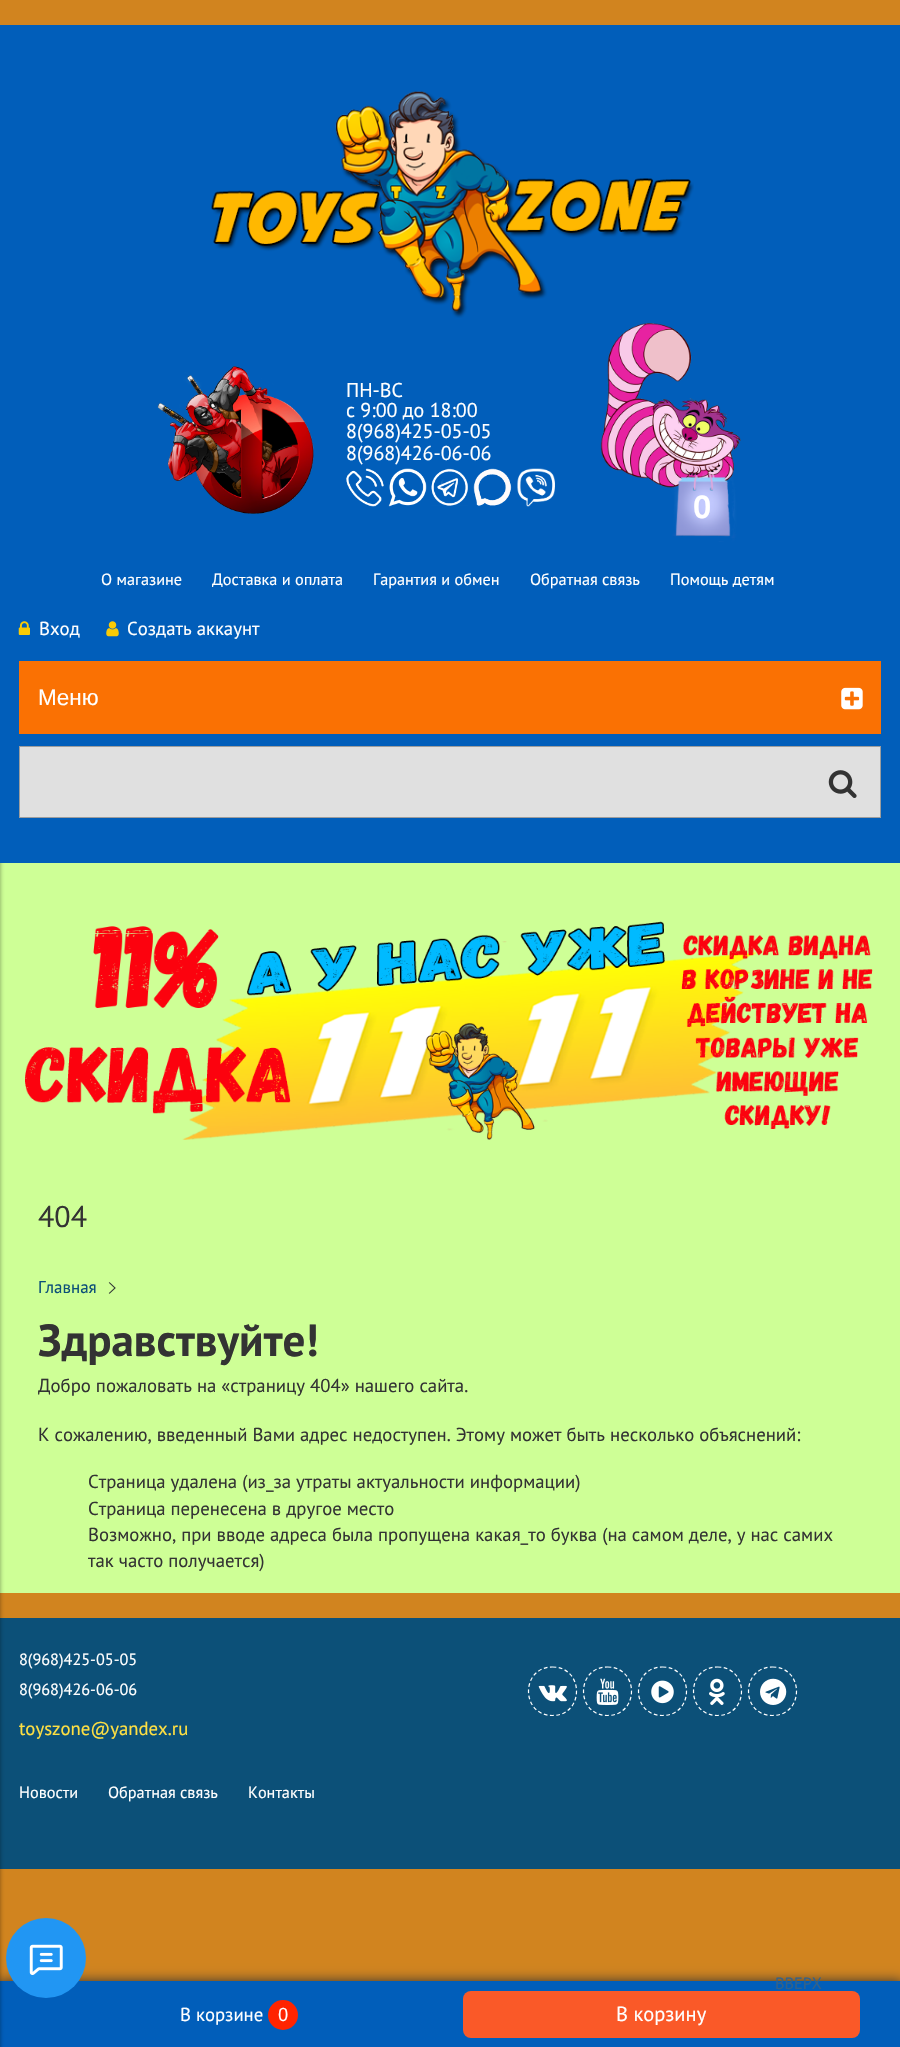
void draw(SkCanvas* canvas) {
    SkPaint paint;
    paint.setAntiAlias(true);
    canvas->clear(0xFFD1841F);
    paint.setColor(0xFFCEFF96);
    canvas->drawRect(SkRect::MakeXYWH(0, 863, 900, 730), paint);
    paint.setColor(0xFF0C5078);
    canvas->drawRect(SkRect::MakeXYWH(0, 1618, 900, 251), paint);
    paint.setColor(0xFF333333);
    paint.setMaskFilter(SkMaskFilter::MakeBlur(kNormal_SkBlurStyle, 6));
    canvas->drawRect(SkRect::MakeXYWH(-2, 1981, 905, 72), paint);
    paint.setMaskFilter(nullptr);
    paint.setColor(0xFF015EBA);
    canvas->drawRect(SkRect::MakeXYWH(0, 1981, 900, 66), paint);
    paint.setColor(0x66000000);
    paint.setMaskFilter(SkMaskFilter::MakeBlur(kNormal_SkBlurStyle, 2));
    canvas->drawRect(SkRect::MakeXYWH(-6, 66, 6, 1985), paint);
    paint.setMaskFilter(nullptr);
    paint.setColor(0xFF015EBA);
    canvas->drawRect(SkRect::MakeXYWH(0, 25, 900, 838), paint);
    canvas->drawImageRect(SkImages::DeferredFromEncodedData(SkData::MakeFromFileName("img1.png")), SkRect::MakeXYWH(211, 91, 483, 227), SkSamplingOptions());
    canvas->drawImageRect(SkImages::DeferredFromEncodedData(SkData::MakeFromFileName("img2.png")), SkRect::MakeXYWH(157, 366, 157, 148), SkSamplingOptions());
    SkFont font1(fontMgr->matchFamilyStyle("PT Sans", SkFontStyle::Normal()), 20);
    font1.setSubpixel(true);
    paint.setColor(0xFFFFFFFF);
    canvas->drawString("ПН-ВС", 346, 397, font1, paint);
    canvas->drawString("с 9:00 до 18:00", 346, 417, font1, paint);
    canvas->drawString("8(968)425-05-05", 346, 438, font1, paint);
    canvas->drawString("8(968)426-06-06", 346, 460, font1, paint);
    canvas->drawImageRect(SkImages::DeferredFromEncodedData(SkData::MakeFromFileName("img3.png")), SkRect::MakeXYWH(346, 468, 38, 39), SkSamplingOptions());
    canvas->drawImageRect(SkImages::DeferredFromEncodedData(SkData::MakeFromFileName("img4.png")), SkRect::MakeXYWH(388, 468, 39, 39), SkSamplingOptions());
    canvas->drawImageRect(SkImages::DeferredFromEncodedData(SkData::MakeFromFileName("img5.png")), SkRect::MakeXYWH(431, 468, 37, 38), SkSamplingOptions());
    canvas->drawImageRect(SkImages::DeferredFromEncodedData(SkData::MakeFromFileName("img6.png")), SkRect::MakeXYWH(473, 468, 39, 38), SkSamplingOptions());
    canvas->drawImageRect(SkImages::DeferredFromEncodedData(SkData::MakeFromFileName("img7.png")), SkRect::MakeXYWH(517, 468, 38, 39), SkSamplingOptions());
    canvas->drawImageRect(SkImages::DeferredFromEncodedData(SkData::MakeFromFileName("img8.png")), SkRect::MakeXYWH(600, 323, 141, 219), SkSamplingOptions());
    SkFont font2(fontMgr->matchFamilyStyle("PT Sans", SkFontStyle::Bold()), 32);
    font2.setSubpixel(true);
    canvas->drawString("0", 693, 518, font2, paint);
    canvas->drawImageRect(SkImages::DeferredFromEncodedData(SkData::MakeFromFileName("img9.png")), SkRect::MakeXYWH(18, 621, 12, 14), SkSamplingOptions());
    SkFont font3(fontMgr->matchFamilyStyle("PT Sans", SkFontStyle::Normal()), 18.75f);
    font3.setSubpixel(true);
    canvas->drawString("Вход", 39, 635, font3, paint);
    canvas->drawImageRect(SkImages::DeferredFromEncodedData(SkData::MakeFromFileName("img10.png")), SkRect::MakeXYWH(106, 621, 13, 16), SkSamplingOptions());
    canvas->drawString("Создать аккаунт", 127, 635, font3, paint);
    SkFont font4(fontMgr->matchFamilyStyle("PT Sans", SkFontStyle::Normal()), 16.25f);
    font4.setSubpixel(true);
    canvas->drawString("О магазине", 101, 585, font4, paint);
    canvas->drawString("Доставка и оплата", 212, 585, font4, paint);
    canvas->drawString("Гарантия и обмен", 373, 585, font4, paint);
    canvas->drawString("Обратная связь", 530, 585, font4, paint);
    canvas->drawString("Помощь детям", 670, 585, font4, paint);
    paint.setColor(0xFFFA7103);
    canvas->drawRect(SkRect::MakeXYWH(19, 661, 862, 73), paint);
    SkFont font5(fontMgr->matchFamilyStyle("Liberation Sans", SkFontStyle::Normal()), 22.5f);
    font5.setSubpixel(true);
    paint.setColor(0xFFFFFFFF);
    canvas->drawString("Меню", 38, 705, font5, paint);
    canvas->drawImageRect(SkImages::DeferredFromEncodedData(SkData::MakeFromFileName("img11.png")), SkRect::MakeXYWH(841, 687, 22, 23), SkSamplingOptions());
    paint.setColor(0xFFE0E0E0);
    canvas->drawRect(SkRect::MakeXYWH(19.5f, 746.5f, 861, 71), paint);
    paint.setStyle(SkPaint::kStroke_Style);
    paint.setStrokeWidth(1);
    paint.setColor(0xFF9D9D9D);
    canvas->drawRect(SkRect::MakeXYWH(19.5f, 746.5f, 861, 71), paint);
    canvas->drawImageRect(SkImages::DeferredFromEncodedData(SkData::MakeFromFileName("img12.png")), SkRect::MakeXYWH(828, 770, 29, 28), SkSamplingOptions());
    canvas->drawImageRect(SkImages::DeferredFromEncodedData(SkData::MakeFromFileName("img13.png")), SkRect::MakeXYWH(25, 921, 848, 219), SkSamplingOptions());
    SkFont font6(fontMgr->matchFamilyStyle("PT Sans", SkFontStyle::Normal()), 30);
    font6.setSubpixel(true);
    paint.setStyle(SkPaint::kFill_Style);
    paint.setColor(0xFF333333);
    canvas->drawString("404", 38, 1227, font6, paint);
    SkFont font7(fontMgr->matchFamilyStyle("PT Sans", SkFontStyle::Normal()), 17);
    font7.setSubpixel(true);
    paint.setColor(0xFF0C5078);
    canvas->drawString("Главная", 38, 1293, font7, paint);
    canvas->drawImageRect(SkImages::DeferredFromEncodedData(SkData::MakeFromFileName("img14.png")), SkRect::MakeXYWH(108, 1282, 8, 12), SkSamplingOptions());
    SkFont font8(fontMgr->matchFamilyStyle("PT Sans", SkFontStyle::Bold()), 45);
    font8.setSubpixel(true);
    paint.setColor(0xFF333333);
    canvas->drawString("Здравствуйте!", 38, 1356, font8, paint);
    canvas->drawString("Добро пожаловать на «страницу 404» нашего сайта.", 38, 1392, font3, paint);
    canvas->drawString("К сожалению, введенный Вами адрес недоступен. Этому может быть несколько объяснений:", 38, 1441, font3, paint);
    canvas->drawString("Страница удалена (из_за утраты актуальности информации)", 88, 1488, font3, paint);
    canvas->drawString("Страница перенесена в другое место", 88, 1515, font3, paint);
    canvas->drawString("Возможно, при вводе адреса была пропущена какая_то буква (на самом деле, у нас самих", 88, 1541, font3, paint);
    canvas->drawString("так часто получается)", 88, 1567, font3, paint);
    paint.setColor(0xFFFFFFFF);
    canvas->drawString("8(968)425-05-05", 19, 1665, font4, paint);
    canvas->drawString("8(968)426-06-06", 19, 1695, font4, paint);
    paint.setColor(0xFFFFE042);
    canvas->drawString("toyszone@yandex.ru", 19, 1735, font3, paint);
    paint.setStyle(SkPaint::kStroke_Style);
    paint.setStrokeWidth(1.2f);
    paint.setColor(0xFFFFFFFF);
    paint.setPathEffect(SkDashPathEffect::Make({{3.75f, 2.5f}}, 0));
    canvas->drawPath(SkPathBuilder().moveTo(552.5f, 1667).cubicTo(584.5f, 1667, 584.5f, 1715.5f, 552.5f, 1715.5f).cubicTo(520.5f, 1715.5f, 520.5f, 1667, 552.5f, 1667).close().detach(), paint);
    paint.setPathEffect(nullptr);
    canvas->drawImageRect(SkImages::DeferredFromEncodedData(SkData::MakeFromFileName("img15.png")), SkRect::MakeXYWH(538, 1685, 29, 17), SkSamplingOptions());
    paint.setPathEffect(SkDashPathEffect::Make({{3.75f, 2.5f}}, 0));
    canvas->drawPath(SkPathBuilder().moveTo(607.5f, 1667).cubicTo(639.5f, 1667, 639.5f, 1715.5f, 607.5f, 1715.5f).cubicTo(575.5f, 1715.5f, 575.5f, 1667, 607.5f, 1667).close().detach(), paint);
    paint.setPathEffect(nullptr);
    canvas->drawImageRect(SkImages::DeferredFromEncodedData(SkData::MakeFromFileName("img16.png")), SkRect::MakeXYWH(596, 1678, 23, 27), SkSamplingOptions());
    paint.setPathEffect(SkDashPathEffect::Make({{3.75f, 2.5f}}, 0));
    canvas->drawPath(SkPathBuilder().moveTo(662.5f, 1667).cubicTo(694.5f, 1667, 694.5f, 1715.5f, 662.5f, 1715.5f).cubicTo(630.5f, 1715.5f, 630.5f, 1667, 662.5f, 1667).close().detach(), paint);
    paint.setPathEffect(nullptr);
    canvas->drawImageRect(SkImages::DeferredFromEncodedData(SkData::MakeFromFileName("img17.png")), SkRect::MakeXYWH(651, 1680, 23, 24), SkSamplingOptions());
    paint.setPathEffect(SkDashPathEffect::Make({{3.75f, 2.5f}}, 0));
    canvas->drawPath(SkPathBuilder().moveTo(717.5f, 1667).cubicTo(749.5f, 1667, 749.5f, 1715.5f, 717.5f, 1715.5f).cubicTo(685.5f, 1715.5f, 685.5f, 1667, 717.5f, 1667).close().detach(), paint);
    paint.setPathEffect(nullptr);
    canvas->drawImageRect(SkImages::DeferredFromEncodedData(SkData::MakeFromFileName("img18.png")), SkRect::MakeXYWH(709, 1678, 16, 27), SkSamplingOptions());
    paint.setPathEffect(SkDashPathEffect::Make({{3.75f, 2.5f}}, 0));
    canvas->drawPath(SkPathBuilder().moveTo(772.5f, 1667).cubicTo(804.5f, 1667, 804.5f, 1715.5f, 772.5f, 1715.5f).cubicTo(740.5f, 1715.5f, 740.5f, 1667, 772.5f, 1667).close().detach(), paint);
    paint.setPathEffect(nullptr);
    canvas->drawImageRect(SkImages::DeferredFromEncodedData(SkData::MakeFromFileName("img19.png")), SkRect::MakeXYWH(760, 1678, 27, 27), SkSamplingOptions());
    paint.setStyle(SkPaint::kFill_Style);
    canvas->drawString("Новости", 19, 1798, font4, paint);
    canvas->drawString("Обратная связь", 108, 1798, font4, paint);
    canvas->drawString("Контакты", 248, 1798, font4, paint);
    canvas->drawString("В корзине", 180, 2021, font3, paint);
    paint.setColor(0xFFFF2400);
    canvas->drawCircle(283, 2015, 15, paint);
    paint.setColor(0xFFFFFFFF);
    canvas->drawString("0", 278, 2021, font3, paint);
    paint.setColor(0xFFFA5928);
    canvas->drawRoundRect(SkRect::MakeXYWH(463, 1991, 397, 47), 8, 8, paint);
    SkFont font9(fontMgr->matchFamilyStyle("PT Sans", SkFontStyle::Normal()), 20.5f);
    font9.setSubpixel(true);
    paint.setColor(0xFFFFFFFF);
    canvas->drawString("В корзину", 616, 2021, font9, paint);
    paint.setColor(0xFF2196F3);
    canvas->drawCircle(46, 1958, 40, paint);
    canvas->drawImageRect(SkImages::DeferredFromEncodedData(SkData::MakeFromFileName("img20.png")), SkRect::MakeXYWH(29, 1944, 34, 31), SkSamplingOptions());
    paint.setColor(0xFF356187);
    canvas->drawString("ВВЕРХ", 775, 1989, font4, paint);
}
